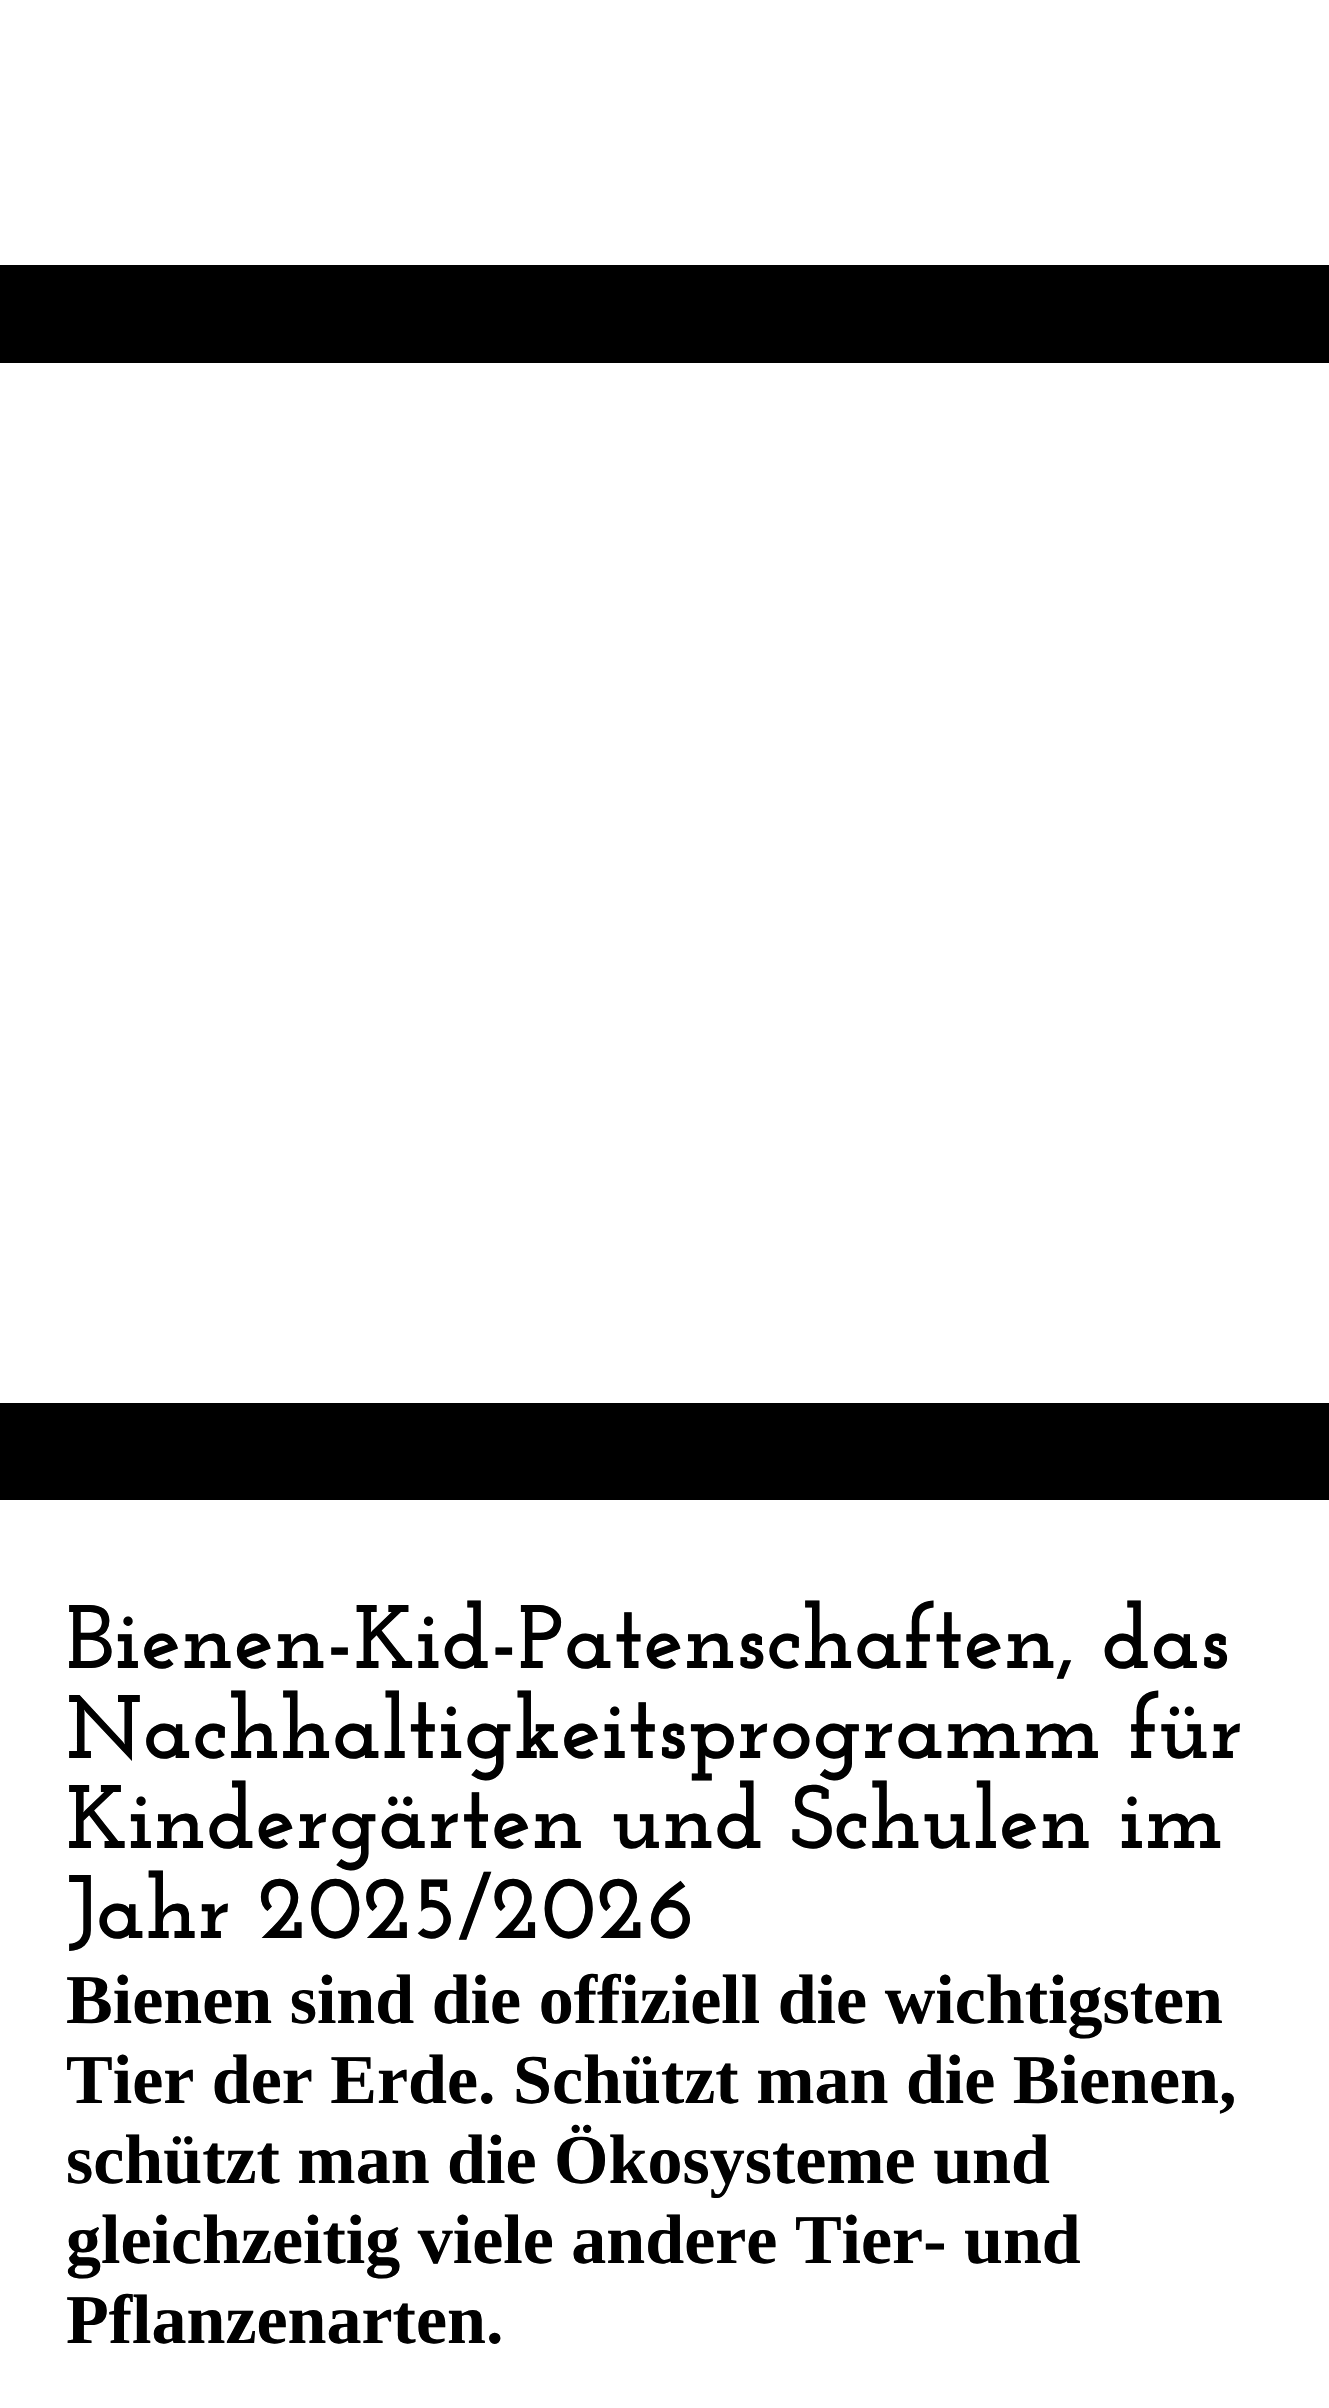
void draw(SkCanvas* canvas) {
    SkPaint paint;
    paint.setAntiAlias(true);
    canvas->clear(0xFFFFFFFF);
    paint.setColor(0xFF000000);
    canvas->drawRect(SkRect::MakeXYWH(0, 265, 1329, 98), paint);
    canvas->drawRect(SkRect::MakeXYWH(0, 1403, 1329, 97), paint);
    SkFont font1(fontMgr->matchFamilyStyle("Josefin Slab", SkFontStyle::Bold()), 90);
    font1.setSubpixel(true);
    canvas->drawString("Bienen-Kid-Patenschaften, das", 66, 1668, font1, paint);
    canvas->drawString("Nachhaltigkeitsprogramm für", 66, 1758, font1, paint);
    canvas->drawString("Kindergärten und Schulen im", 66, 1848, font1, paint);
    canvas->drawString("Jahr 2025/2026", 66, 1938, font1, paint);
    SkFont font2(fontMgr->matchFamilyStyle("Liberation Serif", SkFontStyle::Bold()), 70);
    font2.setSubpixel(true);
    canvas->drawString("Bienen sind die offiziell die wichtigsten", 66, 2023, font2, paint);
    canvas->drawString("Tier der Erde. Schützt man die Bienen,", 66, 2103, font2, paint);
    canvas->drawString("schützt man die Ökosysteme und", 66, 2183, font2, paint);
    canvas->drawString("gleichzeitig viele andere Tier- und", 66, 2263, font2, paint);
    canvas->drawString("Pflanzenarten.", 66, 2343, font2, paint);
}
